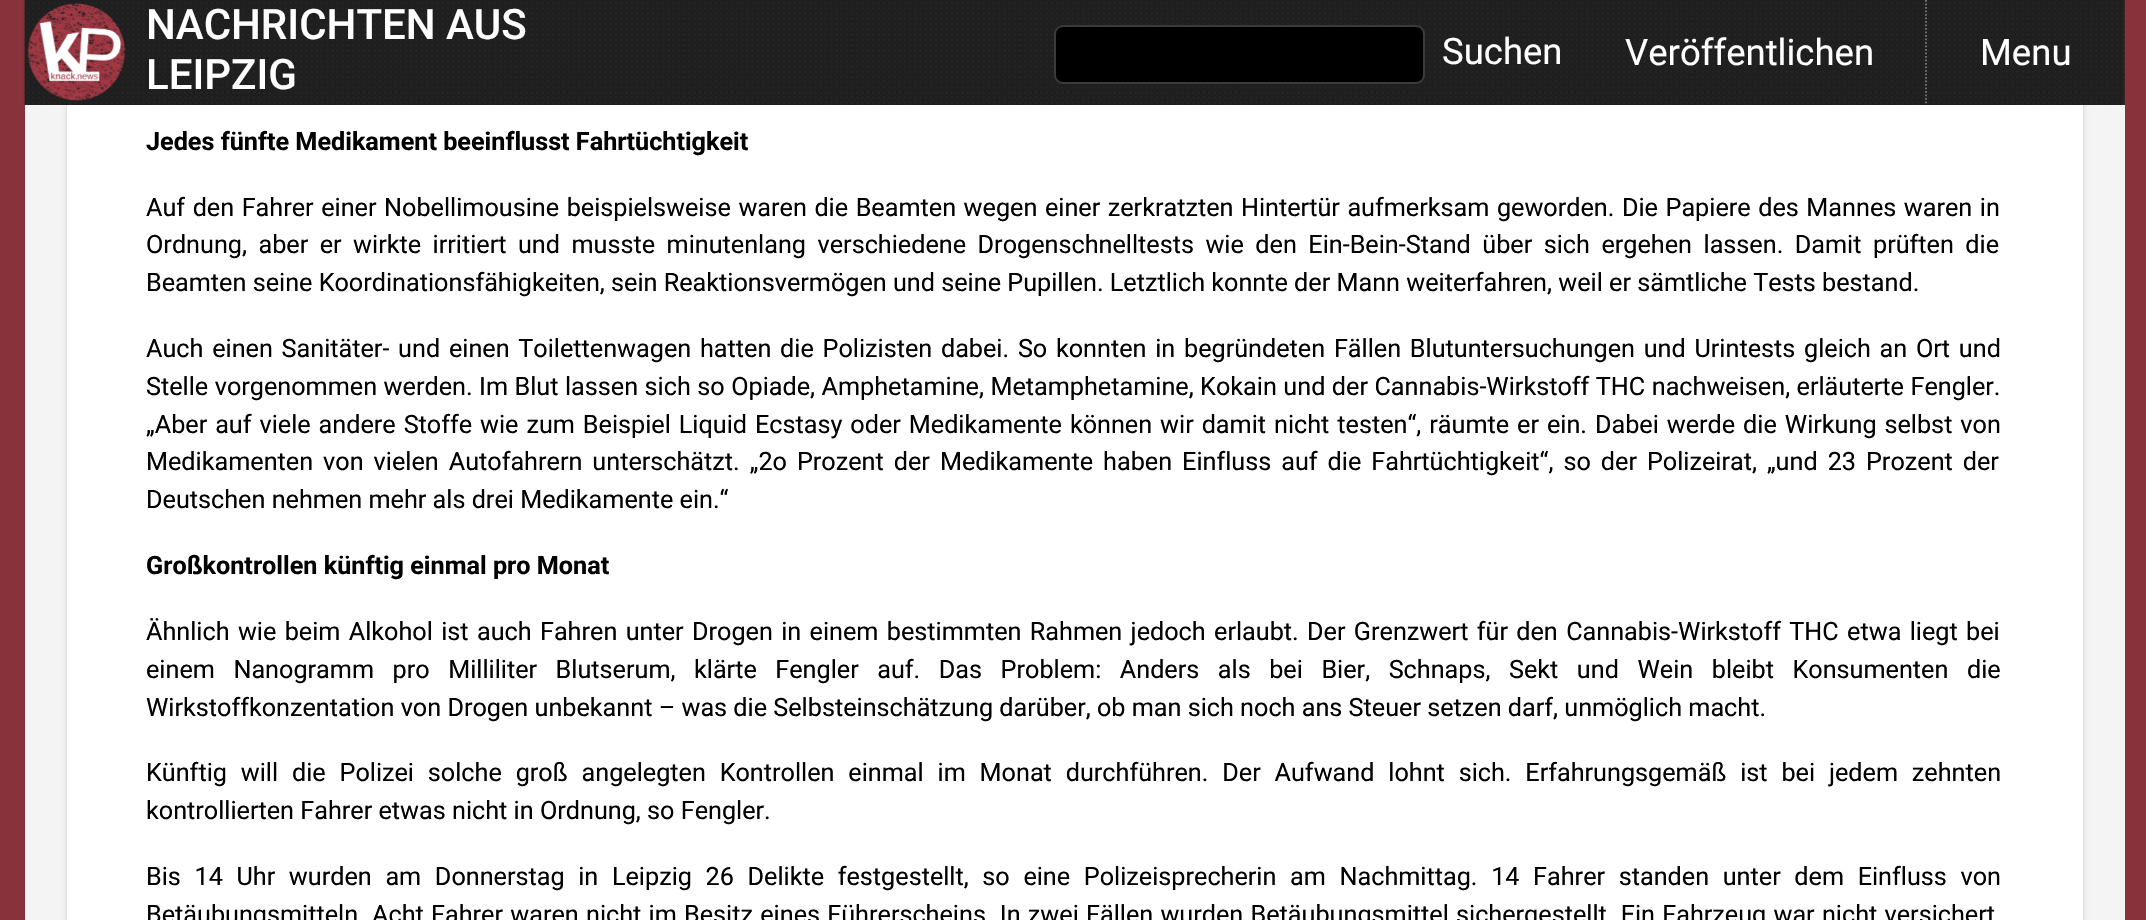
void draw(SkCanvas* canvas) {
    SkPaint paint;
    paint.setAntiAlias(true);
    auto spacedText = [&](const char* s, float x, float y, const SkFont& font, const SkPaint& ink, float letter, float word) {
        std::vector<SkGlyphID> glyphs(font.countText(s, strlen(s), SkTextEncoding::kUTF8));
        std::vector<float> xs(glyphs.size());
        font.textToGlyphs(s, strlen(s), SkTextEncoding::kUTF8, glyphs);
        font.getXPos(glyphs, xs, x);
        float extra = 0;
        for (size_t i = 0; i < glyphs.size(); i++) {
            xs[i] += extra;
            extra += letter + word * (glyphs[i] == font.unicharToGlyph(' '));
        }
        canvas->drawTextBlob(SkTextBlob::MakeFromPosHGlyphs(glyphs, xs, y, font), 0, 0, ink);
    };
    canvas->clear(0xFF88333C);
    paint.setColor(0xFFF4F4F4);
    canvas->drawRect(SkRect::MakeXYWH(25, 105, 2100, 815), paint);
    paint.setColor(0xFFCCCCCC);
    paint.setMaskFilter(SkMaskFilter::MakeBlur(kNormal_SkBlurStyle, 2.5f));
    canvas->drawRect(SkRect::MakeXYWH(67, -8, 2016, 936), paint);
    paint.setMaskFilter(nullptr);
    paint.setColor(0xFF88333C);
    canvas->drawRect(SkRect::MakeXYWH(62, 0, 2026, 105), paint);
    canvas->drawImageRect(SkImages::DeferredFromEncodedData(SkData::MakeFromFileName("img2.png")), SkRect::MakeXYWH(23, 0, 2102, 105), SkSamplingOptions());
    canvas->drawImageRect(SkImages::DeferredFromEncodedData(SkData::MakeFromFileName("img1.png")), SkRect::MakeXYWH(27, 3, 99, 98), SkSamplingOptions());
    SkFont font1(fontMgr->matchFamilyStyle("Roboto", SkFontStyle(500, SkFontStyle::kNormal_Width, SkFontStyle::kUpright_Slant)), 42);
    font1.setSubpixel(true);
    paint.setColor(0xFFFFFFFF);
    canvas->drawString("NACHRICHTEN AUS", 146, 39, font1, paint);
    canvas->drawString("LEIPZIG", 146, 89, font1, paint);
    paint.setColor(0xFF000000);
    canvas->drawRoundRect(SkRect::MakeXYWH(1055, 26, 369, 57), 8, 8, paint);
    paint.setStyle(SkPaint::kStroke_Style);
    paint.setStrokeWidth(2);
    paint.setColor(0xFF3B3B3B);
    canvas->drawRoundRect(SkRect::MakeXYWH(1055, 26, 369, 57), 8, 8, paint);
    SkFont font2(fontMgr->matchFamilyStyle("Roboto", SkFontStyle::Normal()), 36.5f);
    font2.setSubpixel(true);
    paint.setStyle(SkPaint::kFill_Style);
    paint.setColor(0xFFFFFFFF);
    canvas->drawString("Suchen", 1442, 64, font2, paint);
    canvas->drawString("Veröffentlichen", 1625, 65, font2, paint);
    paint.setStyle(SkPaint::kStroke_Style);
    paint.setStrokeWidth(1.8f);
    paint.setColor(0xFF777777);
    paint.setPathEffect(SkDashPathEffect::Make({{1.75f, 1.75f}}, 0));
    canvas->drawPath(SkPathBuilder().moveTo(1926, 0).lineTo(1926, 105).detach(), paint);
    paint.setPathEffect(nullptr);
    paint.setStyle(SkPaint::kFill_Style);
    paint.setColor(0xFFFFFFFF);
    canvas->drawString("Menu", 1980, 65, font2, paint);
    canvas->drawRect(SkRect::MakeXYWH(67, 105, 2016, 815), paint);
    SkFont font3(fontMgr->matchFamilyStyle("Roboto", SkFontStyle::Bold()), 25.2f);
    font3.setSubpixel(true);
    paint.setColor(0xFF000000);
    canvas->drawString("Jedes fünfte Medikament beeinflusst Fahrtüchtigkeit", 146, 150, font3, paint);
    SkFont font4(fontMgr->matchFamilyStyle("Roboto", SkFontStyle::Normal()), 25.2f);
    font4.setSubpixel(true);
    spacedText("Auf den Fahrer einer Nobellimousine beispielsweise waren die Beamten wegen einer zerkratzten Hintertür aufmerksam geworden. Die Papiere des Mannes waren in", 146, 216, font4, paint, 0, 1.3f);
    spacedText("Ordnung, aber er wirkte irritiert und musste minutenlang verschiedene Drogenschnelltests wie den Ein-Bein-Stand über sich ergehen lassen. Damit prüften die", 146, 253, font4, paint, 0, 5.25f);
    canvas->drawString("Beamten seine Koordinationsfähigkeiten, sein Reaktionsvermögen und seine Pupillen. Letztlich konnte der Mann weiterfahren, weil er sämtliche Tests bestand.", 146, 291, font4, paint);
    spacedText("Auch einen Sanitäter- und einen Toilettenwagen hatten die Polizisten dabei. So konnten in begründeten Fällen Blutuntersuchungen und Urintests gleich an Ort und", 146, 357, font4, paint, 0, 2.5f);
    spacedText("Stelle vorgenommen werden. Im Blut lassen sich so Opiade, Amphetamine, Metamphetamine, Kokain und der Cannabis-Wirkstoff THC nachweisen, erläuterte Fengler.", 146, 395, font4, paint, 0, 0.25f);
    spacedText("„Aber auf viele andere Stoffe wie zum Beispiel Liquid Ecstasy oder Medikamente können wir damit nicht testen“, räumte er ein. Dabei werde die Wirkung selbst von", 146, 433, font4, paint, 0, 1.7f);
    spacedText("Medikamenten von vielen Autofahrern unterschätzt. „2o Prozent der Medikamente haben Einfluss auf die Fahrtüchtigkeit“, so der Polizeirat, „und 23 Prozent der", 146, 470, font4, paint, 0, 3.75f);
    canvas->drawString("Deutschen nehmen mehr als drei Medikamente ein.“", 146, 508, font4, paint);
    canvas->drawString("Großkontrollen künftig einmal pro Monat", 146, 574, font3, paint);
    spacedText("Ähnlich wie beim Alkohol ist auch Fahren unter Drogen in einem bestimmten Rahmen jedoch erlaubt. Der Grenzwert für den Cannabis-Wirkstoff THC etwa liegt bei", 146, 640, font4, paint, 0, 2.1f);
    spacedText("einem Nanogramm pro Milliliter Blutserum, klärte Fengler auf. Das Problem: Anders als bei Bier, Schnaps, Sekt und Wein bleibt Konsumenten die", 146, 678, font4, paint, 0, 12.3f);
    canvas->drawString("Wirkstoffkonzentation von Drogen unbekannt – was die Selbsteinschätzung darüber, ob man sich noch ans Steuer setzen darf, unmöglich macht.", 146, 716, font4, paint);
    spacedText("Künftig will die Polizei solche groß angelegten Kontrollen einmal im Monat durchführen. Der Aufwand lohnt sich. Erfahrungsgemäß ist bei jedem zehnten", 146, 781, font4, paint, 0, 7.6f);
    canvas->drawString("kontrollierten Fahrer etwas nicht in Ordnung, so Fengler.", 146, 819, font4, paint);
    spacedText("Bis 14 Uhr wurden am Donnerstag in Leipzig 26 Delikte festgestellt, so eine Polizeisprecherin am Nachmittag. 14 Fahrer standen unter dem Einfluss von", 146, 885, font4, paint, 0, 7.4f);
    spacedText("Betäubungsmitteln. Acht Fahrer waren nicht im Besitz eines Führerscheins. In zwei Fällen wurden Betäubungsmittel sichergestellt. Ein Fahrzeug war nicht versichert", 146, 923, font4, paint, 0, 1);
}
